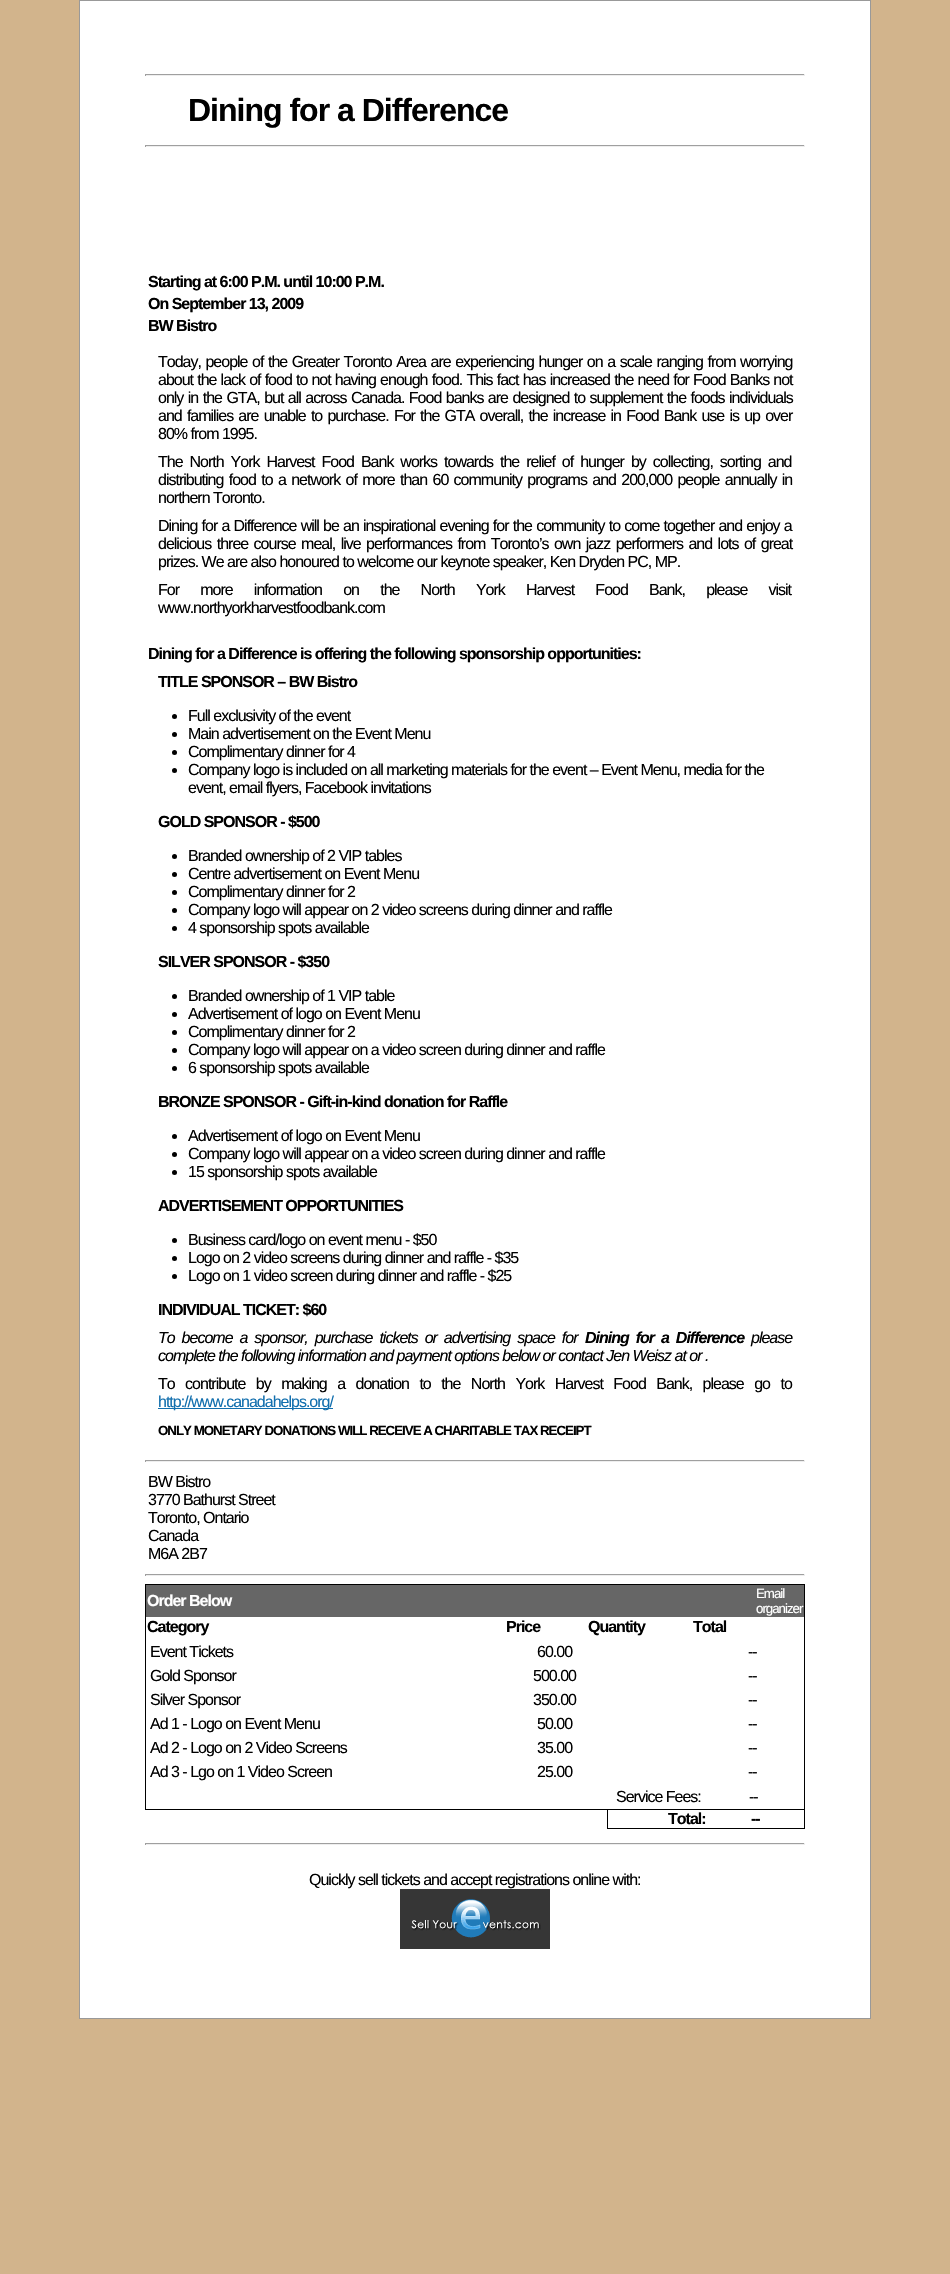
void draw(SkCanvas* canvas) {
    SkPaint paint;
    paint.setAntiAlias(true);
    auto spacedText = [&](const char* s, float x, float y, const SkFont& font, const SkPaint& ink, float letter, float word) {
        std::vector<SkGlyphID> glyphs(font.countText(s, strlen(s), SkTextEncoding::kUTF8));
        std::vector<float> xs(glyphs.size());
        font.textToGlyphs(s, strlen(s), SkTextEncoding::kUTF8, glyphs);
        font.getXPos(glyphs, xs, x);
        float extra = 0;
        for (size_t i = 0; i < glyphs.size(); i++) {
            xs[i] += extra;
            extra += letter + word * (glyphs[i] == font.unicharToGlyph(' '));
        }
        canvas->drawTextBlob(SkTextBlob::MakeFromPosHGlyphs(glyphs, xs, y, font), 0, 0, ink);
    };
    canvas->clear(0xFFD2B48C);
    paint.setColor(0xFFFFFFFF);
    canvas->drawRect(SkRect::MakeXYWH(79.5f, 0.5f, 791, 2018), paint);
    paint.setStyle(SkPaint::kStroke_Style);
    paint.setStrokeWidth(1);
    paint.setColor(0xFF999999);
    canvas->drawRect(SkRect::MakeXYWH(79.5f, 0.5f, 791, 2018), paint);
    paint.setStyle(SkPaint::kFill_Style);
    paint.setColor(0xFF9F9F9F);
    canvas->drawRect(SkRect::MakeXYWH(145, 74, 660, 1), paint);
    paint.setColor(0xFFEEEEEE);
    canvas->drawRect(SkRect::MakeXYWH(804, 74, 1, 2), paint);
    canvas->drawRect(SkRect::MakeXYWH(145, 75, 660, 1), paint);
    paint.setColor(0xFF9F9F9F);
    canvas->drawRect(SkRect::MakeXYWH(145, 74, 1, 2), paint);
    SkFont font1(fontMgr->matchFamilyStyle("Liberation Sans", SkFontStyle::Bold()), 32);
    font1.setSubpixel(true);
    paint.setColor(0xFF000000);
    spacedText("Dining for a Difference", 188, 121, font1, paint, -1, 0);
    paint.setColor(0xFF9F9F9F);
    canvas->drawRect(SkRect::MakeXYWH(145, 145, 660, 1), paint);
    paint.setColor(0xFFEEEEEE);
    canvas->drawRect(SkRect::MakeXYWH(804, 145, 1, 2), paint);
    canvas->drawRect(SkRect::MakeXYWH(145, 146, 660, 1), paint);
    paint.setColor(0xFF9F9F9F);
    canvas->drawRect(SkRect::MakeXYWH(145, 145, 1, 2), paint);
    SkFont font2(fontMgr->matchFamilyStyle("Liberation Sans", SkFontStyle::Bold()), 16);
    font2.setSubpixel(true);
    paint.setColor(0xFF000000);
    spacedText("Starting at 6:00 P.M. until 10:00 P.M.", 148, 287, font2, paint, -1, 0);
    spacedText("On September 13, 2009", 148, 309, font2, paint, -1, 0);
    spacedText("BW Bistro", 148, 331, font2, paint, -1, 0);
    SkFont font3(fontMgr->matchFamilyStyle("Liberation Sans", SkFontStyle::Normal()), 16);
    font3.setSubpixel(true);
    spacedText("Today, people of the Greater Toronto Area are experiencing hunger on a scale ranging from worrying", 158, 367, font3, paint, -1, 1.1f);
    spacedText("about the lack of food to not having enough food. This fact has increased the need for Food Banks not", 158, 385, font3, paint, -1, 0.7f);
    spacedText("only in the GTA, but all across Canada. Food banks are designed to supplement the foods individuals", 158, 403, font3, paint, -1, 1);
    spacedText("and families are unable to purchase. For the GTA overall, the increase in Food Bank use is up over", 158, 421, font3, paint, -1, 1.75f);
    spacedText("80% from 1995.", 158, 439, font3, paint, -1, 0);
    spacedText("The North York Harvest Food Bank works towards the relief of hunger by collecting, sorting and", 158, 467, font3, paint, -1, 3.5f);
    spacedText("distributing food to a network of more than 60 community programs and 200,000 people annually in", 158, 485, font3, paint, -1, 1.9f);
    spacedText("northern Toronto.", 158, 503, font3, paint, -1, 0);
    spacedText("Dining for a Difference will be an inspirational evening for the community to come together and enjoy a", 158, 531, font3, paint, -1, 0.75f);
    spacedText("delicious three course meal, live performances from Toronto’s own jazz performers and lots of great", 158, 549, font3, paint, -1, 2);
    spacedText("prizes. We are also honoured to welcome our keynote speaker, Ken Dryden PC, MP.", 158, 567, font3, paint, -1, 0);
    spacedText("For more information on the North York Harvest Food Bank, please visit", 158, 595, font3, paint, -1, 17.75f);
    spacedText("www.northyorkharvestfoodbank.com", 158, 613, font3, paint, -1, 0);
    spacedText("Dining for a Difference is offering the following sponsorship opportunities:", 148, 659, font2, paint, -1, 0);
    spacedText("TITLE SPONSOR – BW Bistro", 158, 687, font2, paint, -1, 0);
    canvas->drawCircle(174.5f, 716.5f, 2.5f, paint);
    spacedText("Full exclusivity of the event", 188, 721, font3, paint, -1, 0);
    canvas->drawCircle(174.5f, 734.5f, 2.5f, paint);
    spacedText("Main advertisement on the Event Menu", 188, 739, font3, paint, -1, 0);
    canvas->drawCircle(174.5f, 752.5f, 2.5f, paint);
    spacedText("Complimentary dinner for 4", 188, 757, font3, paint, -1, 0);
    canvas->drawCircle(174.5f, 770.5f, 2.5f, paint);
    spacedText("Company logo is included on all marketing materials for the event – Event Menu, media for the", 188, 775, font3, paint, -1, 0);
    spacedText("event, email flyers, Facebook invitations", 188, 793, font3, paint, -1, 0);
    spacedText("GOLD SPONSOR - $500", 158, 827, font2, paint, -1, 0);
    canvas->drawCircle(174.5f, 856.5f, 2.5f, paint);
    spacedText("Branded ownership of 2 VIP tables", 188, 861, font3, paint, -1, 0);
    canvas->drawCircle(174.5f, 874.5f, 2.5f, paint);
    spacedText("Centre advertisement on Event Menu", 188, 879, font3, paint, -1, 0);
    canvas->drawCircle(174.5f, 892.5f, 2.5f, paint);
    spacedText("Complimentary dinner for 2", 188, 897, font3, paint, -1, 0);
    canvas->drawCircle(174.5f, 910.5f, 2.5f, paint);
    spacedText("Company logo will appear on 2 video screens during dinner and raffle", 188, 915, font3, paint, -1, 0);
    canvas->drawCircle(174.5f, 928.5f, 2.5f, paint);
    spacedText("4 sponsorship spots available", 188, 933, font3, paint, -1, 0);
    spacedText("SILVER SPONSOR - $350", 158, 967, font2, paint, -1, 0);
    canvas->drawCircle(174.5f, 996.5f, 2.5f, paint);
    spacedText("Branded ownership of 1 VIP table", 188, 1001, font3, paint, -1, 0);
    canvas->drawCircle(174.5f, 1014.5f, 2.5f, paint);
    spacedText("Advertisement of logo on Event Menu", 188, 1019, font3, paint, -1, 0);
    canvas->drawCircle(174.5f, 1032.5f, 2.5f, paint);
    spacedText("Complimentary dinner for 2", 188, 1037, font3, paint, -1, 0);
    canvas->drawCircle(174.5f, 1050.5f, 2.5f, paint);
    spacedText("Company logo will appear on a video screen during dinner and raffle", 188, 1055, font3, paint, -1, 0);
    canvas->drawCircle(174.5f, 1068.5f, 2.5f, paint);
    spacedText("6 sponsorship spots available", 188, 1073, font3, paint, -1, 0);
    spacedText("BRONZE SPONSOR - Gift-in-kind donation for Raffle", 158, 1107, font2, paint, -1, 0);
    canvas->drawCircle(174.5f, 1136.5f, 2.5f, paint);
    spacedText("Advertisement of logo on Event Menu", 188, 1141, font3, paint, -1, 0);
    canvas->drawCircle(174.5f, 1154.5f, 2.5f, paint);
    spacedText("Company logo will appear on a video screen during dinner and raffle", 188, 1159, font3, paint, -1, 0);
    canvas->drawCircle(174.5f, 1172.5f, 2.5f, paint);
    spacedText("15 sponsorship spots available", 188, 1177, font3, paint, -1, 0);
    spacedText("ADVERTISEMENT OPPORTUNITIES", 158, 1211, font2, paint, -1, 0);
    canvas->drawCircle(174.5f, 1240.5f, 2.5f, paint);
    spacedText("Business card/logo on event menu - $50", 188, 1245, font3, paint, -1, 0);
    canvas->drawCircle(174.5f, 1258.5f, 2.5f, paint);
    spacedText("Logo on 2 video screens during dinner and raffle - $35", 188, 1263, font3, paint, -1, 0);
    canvas->drawCircle(174.5f, 1276.5f, 2.5f, paint);
    spacedText("Logo on 1 video screen during dinner and raffle - $25", 188, 1281, font3, paint, -1, 0);
    spacedText("INDIVIDUAL TICKET: $60", 158, 1315, font2, paint, -1, 0);
    SkFont font4(fontMgr->matchFamilyStyle("Liberation Sans", SkFontStyle::Italic()), 16);
    font4.setSubpixel(true);
    spacedText("To become a sponsor, purchase tickets or advertising space for", 158, 1343, font4, paint, -1, 3.5f);
    SkFont font5(fontMgr->matchFamilyStyle("Liberation Sans", SkFontStyle::BoldItalic()), 16);
    font5.setSubpixel(true);
    spacedText("Dining for a Difference", 585, 1343, font5, paint, -1, 3.5f);
    spacedText("please", 751, 1343, font4, paint, -1, 0);
    spacedText("complete the following information and payment options below or contact Jen Weisz at or .", 158, 1361, font4, paint, -1, 0);
    spacedText("To contribute by making a donation to the North York Harvest Food Bank, please go to", 158, 1389, font3, paint, -1, 7);
    paint.setColor(0xFF126FAE);
    canvas->drawRect(SkRect::MakeXYWH(158, 1408, 175, 1), paint);
    spacedText("http://www.canadahelps.org/", 158, 1407, font3, paint, -1, 0);
    SkFont font6(fontMgr->matchFamilyStyle("Liberation Sans", SkFontStyle::Bold()), 13.3f);
    font6.setSubpixel(true);
    paint.setColor(0xFF000000);
    spacedText("ONLY MONETARY DONATIONS WILL RECEIVE A CHARITABLE TAX RECEIPT", 158, 1435, font6, paint, -1, 0);
    paint.setColor(0xFF9F9F9F);
    canvas->drawRect(SkRect::MakeXYWH(145, 1460, 660, 1), paint);
    paint.setColor(0xFFEEEEEE);
    canvas->drawRect(SkRect::MakeXYWH(804, 1460, 1, 2), paint);
    canvas->drawRect(SkRect::MakeXYWH(145, 1461, 660, 1), paint);
    paint.setColor(0xFF9F9F9F);
    canvas->drawRect(SkRect::MakeXYWH(145, 1460, 1, 2), paint);
    paint.setColor(0xFF000000);
    spacedText("BW Bistro", 148, 1487, font3, paint, -1, 0);
    spacedText("3770 Bathurst Street", 148, 1505, font3, paint, -1, 0);
    spacedText("Toronto, Ontario", 148, 1523, font3, paint, -1, 0);
    spacedText("Canada", 148, 1541, font3, paint, -1, 0);
    spacedText("M6A 2B7", 148, 1559, font3, paint, -1, 0);
    paint.setColor(0xFF9F9F9F);
    canvas->drawRect(SkRect::MakeXYWH(145, 1574, 660, 1), paint);
    paint.setColor(0xFFEEEEEE);
    canvas->drawRect(SkRect::MakeXYWH(804, 1574, 1, 2), paint);
    canvas->drawRect(SkRect::MakeXYWH(145, 1575, 660, 1), paint);
    paint.setColor(0xFF9F9F9F);
    canvas->drawRect(SkRect::MakeXYWH(145, 1574, 1, 2), paint);
    paint.setColor(0xFF000000);
    canvas->drawRect(SkRect::MakeXYWH(145, 1584, 660, 1), paint);
    canvas->drawRect(SkRect::MakeXYWH(804, 1584, 1, 245), paint);
    canvas->drawRect(SkRect::MakeXYWH(145, 1584, 1, 201), paint);
    paint.setColor(0xFF666666);
    canvas->drawRect(SkRect::MakeXYWH(146, 1585, 658, 32), paint);
    paint.setColor(0xFFFFFFFF);
    spacedText("Order Below", 147, 1606, font2, paint, -1, 0);
    SkFont font7(fontMgr->matchFamilyStyle("Liberation Sans", SkFontStyle::Normal()), 13.3f);
    font7.setSubpixel(true);
    spacedText("Email", 756, 1598, font7, paint, -1, 0);
    spacedText("organizer", 756, 1613, font7, paint, -1, 0);
    paint.setColor(0xFF000000);
    spacedText("Category", 147, 1632, font2, paint, -1, 0);
    spacedText("Price", 506, 1632, font2, paint, -1, 0);
    spacedText("Quantity", 588, 1632, font2, paint, -1, 0);
    spacedText("Total", 693, 1632, font2, paint, -1, 0);
    spacedText("Event Tickets", 150, 1657, font3, paint, -1, 0);
    spacedText("60.00", 537, 1657, font3, paint, -1, 0);
    spacedText("--", 748, 1657, font3, paint, -1, 0);
    spacedText("Gold Sponsor", 150, 1681, font3, paint, -1, 0);
    spacedText("500.00", 533, 1681, font3, paint, -1, 0);
    spacedText("--", 748, 1681, font3, paint, -1, 0);
    spacedText("Silver Sponsor", 150, 1705, font3, paint, -1, 0);
    spacedText("350.00", 533, 1705, font3, paint, -1, 0);
    spacedText("--", 748, 1705, font3, paint, -1, 0);
    spacedText("Ad 1 - Logo on Event Menu", 150, 1729, font3, paint, -1, 0);
    spacedText("50.00", 537, 1729, font3, paint, -1, 0);
    spacedText("--", 748, 1729, font3, paint, -1, 0);
    spacedText("Ad 2 - Logo on 2 Video Screens", 150, 1753, font3, paint, -1, 0);
    spacedText("35.00", 537, 1753, font3, paint, -1, 0);
    spacedText("--", 748, 1753, font3, paint, -1, 0);
    spacedText("Ad 3 - Lgo on 1 Video Screen", 150, 1777, font3, paint, -1, 0);
    spacedText("25.00", 537, 1777, font3, paint, -1, 0);
    spacedText("--", 748, 1777, font3, paint, -1, 0);
    canvas->drawRect(SkRect::MakeXYWH(145, 1809, 660, 1), paint);
    canvas->drawRect(SkRect::MakeXYWH(145, 1785, 1, 25), paint);
    spacedText("Service Fees:", 616, 1802, font3, paint, -1, 0);
    spacedText("--", 749, 1802, font3, paint, -1, 0);
    canvas->drawRect(SkRect::MakeXYWH(607, 1828, 198, 1), paint);
    canvas->drawRect(SkRect::MakeXYWH(607, 1810, 1, 19), paint);
    spacedText("Total:", 668, 1824, font2, paint, -1, 0);
    spacedText("--", 751, 1824, font2, paint, -1, 0);
    paint.setColor(0xFF9F9F9F);
    canvas->drawRect(SkRect::MakeXYWH(145, 1843, 660, 1), paint);
    paint.setColor(0xFFEEEEEE);
    canvas->drawRect(SkRect::MakeXYWH(804, 1843, 1, 2), paint);
    canvas->drawRect(SkRect::MakeXYWH(145, 1844, 660, 1), paint);
    paint.setColor(0xFF9F9F9F);
    canvas->drawRect(SkRect::MakeXYWH(145, 1843, 1, 2), paint);
    paint.setColor(0xFF000000);
    spacedText("Quickly sell tickets and accept registrations online with:", 309, 1885, font3, paint, -1, 0);
    canvas->drawImageRect(SkImages::DeferredFromEncodedData(SkData::MakeFromFileName("img1.png")), SkRect::MakeXYWH(400, 1889, 150, 60), SkSamplingOptions());
}
